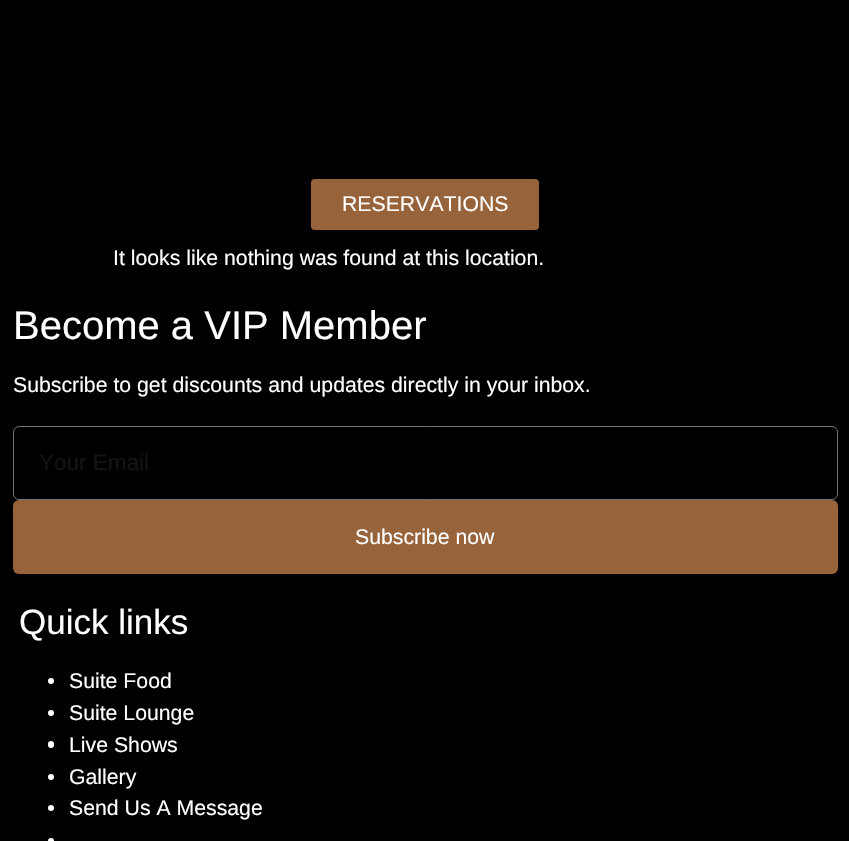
void draw(SkCanvas* canvas) {
    SkPaint paint;
    paint.setAntiAlias(true);
    canvas->clear(0xFF000000);
    paint.setColor(0xFF97633B);
    canvas->drawRoundRect(SkRect::MakeXYWH(311, 179, 228, 51), 4, 4, paint);
    SkFont font1(fontMgr->matchFamilyStyle("Liberation Sans", SkFontStyle::Normal()), 21.25f);
    font1.setSubpixel(true);
    paint.setColor(0xFFFFFFFF);
    canvas->drawString("RESERVATIONS", 342, 211, font1, paint);
    canvas->drawString("It looks like nothing was found at this location.", 113, 265, font1, paint);
    SkFont font2(fontMgr->matchFamilyStyle("Liberation Sans", SkFontStyle::Normal()), 40);
    font2.setSubpixel(true);
    canvas->drawString("Become a VIP Member", 13, 339, font2, paint);
    canvas->drawString("Subscribe to get discounts and updates directly in your inbox.", 13, 392, font1, paint);
    paint.setStyle(SkPaint::kStroke_Style);
    paint.setStrokeWidth(1);
    paint.setColor(0xFF69727D);
    canvas->drawRoundRect(SkRect::MakeXYWH(13.5f, 426.5f, 824, 73), 5.5f, 5.5f, paint);
    SkFont font3(fontMgr->matchFamilyStyle("Liberation Sans", SkFontStyle::Normal()), 22.5f);
    font3.setSubpixel(true);
    paint.setStyle(SkPaint::kFill_Style);
    paint.setColor(0xFF131416);
    canvas->drawString("Your Email", 39, 470, font3, paint);
    paint.setColor(0xFF97633B);
    canvas->drawRoundRect(SkRect::MakeXYWH(13, 500, 825, 74), 6, 6, paint);
    paint.setColor(0xFFFFFFFF);
    canvas->drawString("Subscribe now", 355, 544, font1, paint);
    SkFont font4(fontMgr->matchFamilyStyle("Liberation Sans", SkFontStyle::Normal()), 35);
    font4.setSubpixel(true);
    canvas->drawString("Quick links", 19, 634, font4, paint);
    canvas->drawCircle(51, 681, 3, paint);
    canvas->drawString("Suite Food", 69, 688, font1, paint);
    canvas->drawCircle(51, 713, 3, paint);
    canvas->drawString("Suite Lounge", 69, 720, font1, paint);
    canvas->drawRoundRect(SkRect::MakeXYWH(48, 741, 6, 7), 3, 3, paint);
    canvas->drawString("Live Shows", 69, 752, font1, paint);
    canvas->drawCircle(51, 777, 3, paint);
    canvas->drawString("Gallery", 69, 784, font1, paint);
    canvas->drawCircle(51, 808, 3, paint);
    canvas->drawString("Send Us A Message", 69, 815, font1, paint);
    canvas->drawCircle(51, 841, 3, paint);
}
